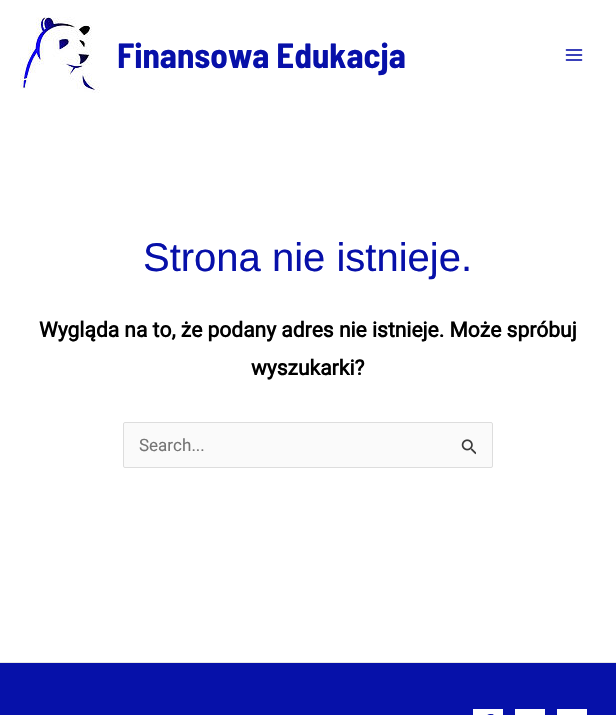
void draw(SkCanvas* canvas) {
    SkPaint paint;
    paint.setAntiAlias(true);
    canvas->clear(0xFFFFFFFF);
    canvas->drawImageRect(SkImages::DeferredFromEncodedData(SkData::MakeFromFileName("img1.png")), SkRect::MakeXYWH(20, 17, 80, 76), SkSamplingOptions());
    SkFont font1(fontMgr->matchFamilyStyle("Barlow Semi Condensed", SkFontStyle::Bold()), 35);
    font1.setSubpixel(true);
    paint.setColor(0xFF0710A9);
    canvas->drawString("Finansowa Edukacja", 117, 68, font1, paint);
    canvas->drawImageRect(SkImages::DeferredFromEncodedData(SkData::MakeFromFileName("img2.png")), SkRect::MakeXYWH(565, 49, 18, 12), SkSamplingOptions());
    SkFont font2(fontMgr->matchFamilyStyle("Liberation Sans", SkFontStyle::Normal()), 40);
    font2.setSubpixel(true);
    canvas->drawString("Strona nie istnieje.", 143, 271, font2, paint);
    SkFont font3(fontMgr->matchFamilyStyle("Roboto", SkFontStyle::Bold()), 21);
    font3.setSubpixel(true);
    paint.setColor(0xFF000000);
    canvas->drawString("Wygląda na to, że podany adres nie istnieje. Może spróbuj", 39, 337, font3, paint);
    canvas->drawString("wyszukarki?", 251, 375, font3, paint);
    paint.setColor(0xFFFAFAFA);
    canvas->drawRoundRect(SkRect::MakeXYWH(123.5f, 422.5f, 369, 45), 1.5f, 1.5f, paint);
    paint.setStyle(SkPaint::kStroke_Style);
    paint.setStrokeWidth(1);
    paint.setColor(0xFFDDDDDD);
    canvas->drawRoundRect(SkRect::MakeXYWH(123.5f, 422.5f, 369, 45), 1.5f, 1.5f, paint);
    SkFont font4(fontMgr->matchFamilyStyle("Roboto", SkFontStyle::Normal()), 17);
    font4.setSubpixel(true);
    paint.setStyle(SkPaint::kFill_Style);
    paint.setColor(0xFF757575);
    canvas->drawString("Search...", 139, 451, font4, paint);
    canvas->drawImageRect(SkImages::DeferredFromEncodedData(SkData::MakeFromFileName("img3.png")), SkRect::MakeXYWH(461, 439, 15, 16), SkSamplingOptions());
    paint.setColor(0xFF0611A9);
    canvas->drawRect(SkRect::MakeXYWH(0, 663, 616, 52), paint);
    paint.setColor(0xFFE6E6E6);
    canvas->drawRect(SkRect::MakeXYWH(0, 662, 616, 1), paint);
    paint.setColor(0xFFFFFFFF);
    canvas->drawRect(SkRect::MakeXYWH(473, 709, 30, 6), paint);
    canvas->drawImageRect(SkImages::DeferredFromEncodedData(SkData::MakeFromFileName("img4.png")), SkRect::MakeXYWH(487, 714, 7, 1), SkSamplingOptions());
    canvas->drawRect(SkRect::MakeXYWH(515, 709, 30, 6), paint);
    canvas->drawRect(SkRect::MakeXYWH(557, 709, 30, 6), paint);
}
